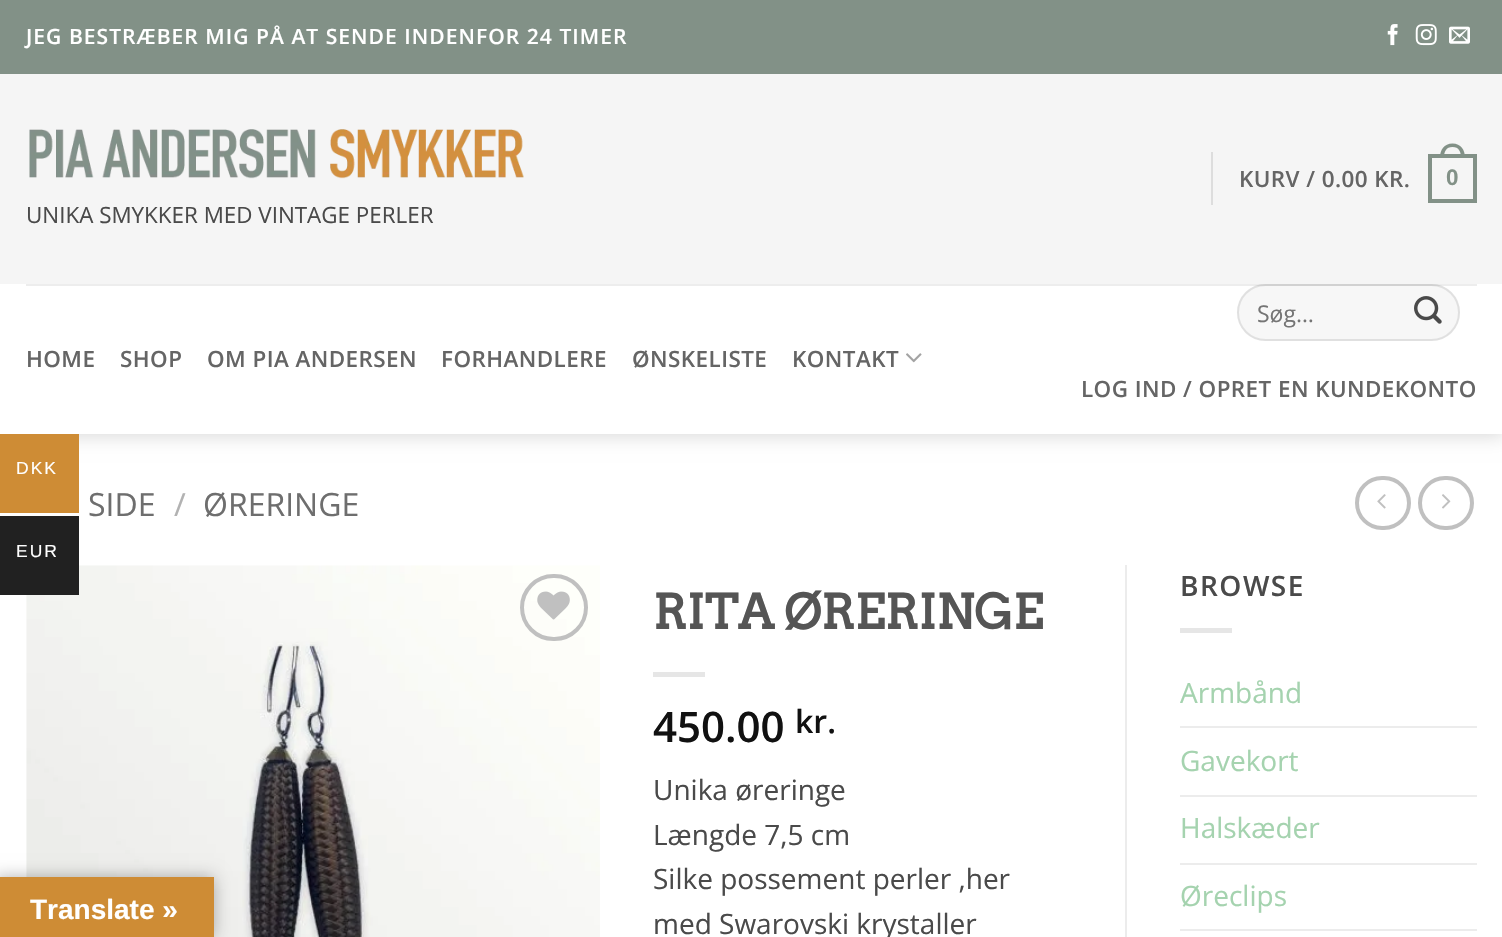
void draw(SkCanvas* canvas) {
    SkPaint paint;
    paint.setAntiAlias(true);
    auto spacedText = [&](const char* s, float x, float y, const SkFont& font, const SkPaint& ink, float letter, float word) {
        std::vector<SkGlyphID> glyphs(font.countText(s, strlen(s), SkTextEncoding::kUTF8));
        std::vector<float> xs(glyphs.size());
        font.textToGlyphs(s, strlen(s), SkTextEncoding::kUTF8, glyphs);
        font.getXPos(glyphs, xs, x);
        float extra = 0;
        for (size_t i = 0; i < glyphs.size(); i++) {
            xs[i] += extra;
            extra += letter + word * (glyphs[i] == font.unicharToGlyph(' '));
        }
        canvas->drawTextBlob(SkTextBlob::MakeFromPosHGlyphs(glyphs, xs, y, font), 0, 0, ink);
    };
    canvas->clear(0xFFFFFFFF);
    paint.setColor(0x26000000);
    paint.setMaskFilter(SkMaskFilter::MakeBlur(kNormal_SkBlurStyle, 9));
    canvas->drawRect(SkRect::MakeXYWH(2, 2, 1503, 434), paint);
    paint.setMaskFilter(nullptr);
    paint.setColor(0xFF829187);
    canvas->drawRect(SkRect::MakeXYWH(0, 0, 1502, 74), paint);
    SkFont font1(fontMgr->matchFamilyStyle("Open Sans", SkFontStyle(600, SkFontStyle::kNormal_Width, SkFontStyle::kUpright_Slant)), 21);
    font1.setSubpixel(true);
    paint.setColor(0xFFFFFFFF);
    spacedText("JEG BESTRÆBER MIG PÅ AT SENDE INDENFOR 24 TIMER", 26, 44, font1, paint, 1.05f, 0);
    canvas->drawImageRect(SkImages::DeferredFromEncodedData(SkData::MakeFromFileName("img1.png")), SkRect::MakeXYWH(1387, 24, 11, 22), SkSamplingOptions());
    canvas->drawImageRect(SkImages::DeferredFromEncodedData(SkData::MakeFromFileName("img2.png")), SkRect::MakeXYWH(1415, 24, 22, 22), SkSamplingOptions());
    canvas->drawImageRect(SkImages::DeferredFromEncodedData(SkData::MakeFromFileName("img3.png")), SkRect::MakeXYWH(1449, 26, 21, 18), SkSamplingOptions());
    paint.setColor(0xFFF5F5F5);
    canvas->drawRect(SkRect::MakeXYWH(0, 74, 1502, 210), paint);
    paint.setColor(0xFFDDDDDD);
    canvas->drawRect(SkRect::MakeXYWH(1211, 152, 2, 53), paint);
    SkFont font2(fontMgr->matchFamilyStyle("Open Sans", SkFontStyle(600, SkFontStyle::kNormal_Width, SkFontStyle::kUpright_Slant)), 22.4f);
    font2.setSubpixel(true);
    paint.setColor(0xFF656565);
    spacedText("KURV / 0.00 KR.", 1239, 187, font2, paint, 0.45f, 0);
    paint.setStyle(SkPaint::kStroke_Style);
    paint.setStrokeWidth(4);
    paint.setColor(0xFF829187);
    canvas->drawRect(SkRect::MakeXYWH(1430, 156, 45, 45), paint);
    paint.setStyle(SkPaint::kFill_Style);
    canvas->drawPath(SkPathBuilder(SkPathFillType::kEvenOdd).moveTo(1452.5f, 143.5f).cubicTo(1461, 143.5f, 1465, 150, 1465, 157.5f).lineTo(1440, 157.5f).cubicTo(1440, 150, 1444, 143.5f, 1452.5f, 143.5f).close().moveTo(1452.5f, 147).cubicTo(1459, 147, 1461, 152, 1461, 157.5f).lineTo(1444, 157.5f).cubicTo(1444, 152, 1446, 147, 1452.5f, 147).close().detach(), paint);
    SkFont font3(fontMgr->matchFamilyStyle("Liberation Sans", SkFontStyle::Bold()), 22.4f);
    font3.setSubpixel(true);
    spacedText("0", 1446, 185, font3, paint, 0.45f, 0);
    canvas->drawImageRect(SkImages::DeferredFromEncodedData(SkData::MakeFromFileName("img4.png")), SkRect::MakeXYWH(29, 129, 495, 50), SkSamplingOptions());
    SkFont font4(fontMgr->matchFamilyStyle("Open Sans", SkFontStyle::Normal()), 22.4f);
    font4.setSubpixel(true);
    paint.setColor(0xFF4A4A4A);
    canvas->drawString("UNIKA SMYKKER MED VINTAGE PERLER", 26, 223, font4, paint);
    paint.setColor(0xFFFFFFFF);
    canvas->drawRect(SkRect::MakeXYWH(0, 284, 1502, 150), paint);
    paint.setColor(0xFFF7F7F7);
    canvas->drawRoundRect(SkRect::MakeXYWH(1237, 284, 223, 57), 28.5f, 28.5f, paint);
    paint.setStyle(SkPaint::kStroke_Style);
    paint.setStrokeWidth(2);
    paint.setColor(0x17000000);
    canvas->drawRoundRect(SkRect::MakeXYWH(1238, 285, 221, 55), 27.5f, 27.5f, paint);
    paint.setStyle(SkPaint::kFill_Style);
    paint.setColor(0x1A4A4A4A);
    canvas->drawRect(SkRect::MakeXYWH(26, 284, 1451, 2), paint);
    paint.setColor(0xFF656565);
    spacedText("HOME", 26, 367, font2, paint, 0.45f, 0);
    spacedText("SHOP", 120, 367, font2, paint, 0.45f, 0);
    spacedText("OM PIA ANDERSEN", 207, 367, font2, paint, 0.45f, 0);
    spacedText("FORHANDLERE", 441, 367, font2, paint, 0.45f, 0);
    spacedText("ØNSKELISTE", 632, 367, font2, paint, 0.45f, 0);
    spacedText("KONTAKT", 792, 367, font2, paint, 0.45f, 0);
    canvas->drawImageRect(SkImages::DeferredFromEncodedData(SkData::MakeFromFileName("img5.png")), SkRect::MakeXYWH(906, 353, 16, 10), SkSamplingOptions());
    SkFont font5(fontMgr->matchFamilyStyle("Open Sans", SkFontStyle::Normal()), 23);
    font5.setSubpixel(true);
    paint.setColor(0xFF757575);
    canvas->drawString("Søg…", 1257, 322, font5, paint);
    canvas->drawImageRect(SkImages::DeferredFromEncodedData(SkData::MakeFromFileName("img6.png")), SkRect::MakeXYWH(1414, 296, 28, 28), SkSamplingOptions());
    paint.setColor(0xFF656565);
    spacedText("LOG IND / OPRET EN KUNDEKONTO", 1081, 397, font2, paint, 0.45f, 0);
    SkFont font6(fontMgr->matchFamilyStyle("Open Sans", SkFontStyle::Normal()), 32);
    font6.setSubpixel(true);
    paint.setColor(0xFF6E6E6E);
    canvas->drawString("SIDE", 88, 516, font6, paint);
    paint.setColor(0xFFB2B2B2);
    canvas->drawString("/", 174, 516, font6, paint);
    paint.setColor(0xFF6E6E6E);
    canvas->drawString("ØRERINGE", 203, 516, font6, paint);
    paint.setStyle(SkPaint::kStroke_Style);
    paint.setStrokeWidth(4);
    paint.setColor(0xFFC0C0C0);
    canvas->drawRoundRect(SkRect::MakeXYWH(1357, 478, 52, 50), 25, 25, paint);
    canvas->drawImageRect(SkImages::DeferredFromEncodedData(SkData::MakeFromFileName("img7.png")), SkRect::MakeXYWH(1377, 494, 9, 15), SkSamplingOptions());
    canvas->drawRoundRect(SkRect::MakeXYWH(1420, 478, 52, 50), 25, 25, paint);
    canvas->drawImageRect(SkImages::DeferredFromEncodedData(SkData::MakeFromFileName("img8.png")), SkRect::MakeXYWH(1442, 494, 9, 15), SkSamplingOptions());
    canvas->drawImageRect(SkImages::DeferredFromEncodedData(SkData::MakeFromFileName("img9.png")), SkRect::MakeXYWH(26, 565, 574, 372), SkSamplingOptions());
    canvas->drawRoundRect(SkRect::MakeXYWH(522, 576, 64, 63), 31.5f, 31.5f, paint);
    canvas->drawImageRect(SkImages::DeferredFromEncodedData(SkData::MakeFromFileName("img10.png")), SkRect::MakeXYWH(537, 591, 33, 29), SkSamplingOptions());
    paint.setStyle(SkPaint::kFill_Style);
    paint.setColor(0xFFECECEC);
    canvas->drawRect(SkRect::MakeXYWH(1125, 565, 2, 372), paint);
    SkFont font7(fontMgr->matchFamilyStyle("Arvo", SkFontStyle::Bold()), 47.5f);
    font7.setSubpixel(true);
    paint.setColor(0xFF555555);
    canvas->drawString("RITA ØRERINGE", 653, 629, font7, paint);
    paint.setColor(0xFFE6E6E6);
    canvas->drawRect(SkRect::MakeXYWH(653, 672, 52, 5), paint);
    SkFont font8(fontMgr->matchFamilyStyle("Open Sans", SkFontStyle(600, SkFontStyle::kNormal_Width, SkFontStyle::kUpright_Slant)), 42);
    font8.setSubpixel(true);
    paint.setColor(0xFF111111);
    canvas->drawString("450.00", 653, 742, font8, paint);
    SkFont font9(fontMgr->matchFamilyStyle("Open Sans", SkFontStyle(600, SkFontStyle::kNormal_Width, SkFontStyle::kUpright_Slant)), 32);
    font9.setSubpixel(true);
    canvas->drawString("kr.", 795, 733, font9, paint);
    SkFont font10(fontMgr->matchFamilyStyle("Open Sans", SkFontStyle::Normal()), 28);
    font10.setSubpixel(true);
    paint.setColor(0xFF4A4A4A);
    canvas->drawString("Unika øreringe", 653, 800, font10, paint);
    canvas->drawString("Længde 7,5 cm", 653, 845, font10, paint);
    canvas->drawString("Silke possement perler ,her", 653, 889, font10, paint);
    canvas->drawString("med Swarovski krystaller", 653, 934, font10, paint);
    SkFont font11(fontMgr->matchFamilyStyle("Open Sans", SkFontStyle(600, SkFontStyle::kNormal_Width, SkFontStyle::kUpright_Slant)), 28);
    font11.setSubpixel(true);
    spacedText("BROWSE", 1180, 596, font11, paint, 1.5f, 0);
    paint.setColor(0xFFE6E6E6);
    canvas->drawRect(SkRect::MakeXYWH(1180, 628, 52, 5), paint);
    paint.setColor(0xFFA5D3AF);
    canvas->drawString("Armbånd", 1180, 703, font10, paint);
    paint.setColor(0xFFECECEC);
    canvas->drawRect(SkRect::MakeXYWH(1180, 726, 297, 2), paint);
    paint.setColor(0xFFA5D3AF);
    canvas->drawString("Gavekort", 1180, 771, font10, paint);
    paint.setColor(0xFFECECEC);
    canvas->drawRect(SkRect::MakeXYWH(1180, 795, 297, 2), paint);
    paint.setColor(0xFFA5D3AF);
    canvas->drawString("Halskæder", 1180, 838, font10, paint);
    paint.setColor(0xFFECECEC);
    canvas->drawRect(SkRect::MakeXYWH(1180, 863, 297, 2), paint);
    paint.setColor(0xFFA5D3AF);
    canvas->drawString("Øreclips", 1180, 906, font10, paint);
    paint.setColor(0xFFECECEC);
    canvas->drawRect(SkRect::MakeXYWH(1180, 929, 297, 2), paint);
    paint.setColor(0xFFCE8C35);
    canvas->drawRect(SkRect::MakeXYWH(0, 434, 79, 79), paint);
    SkFont font12(fontMgr->matchFamilyStyle("Liberation Sans", SkFontStyle::Normal()), 17.5f);
    font12.setSubpixel(true);
    paint.setColor(0xFFFFFFFF);
    spacedText("DKK", 16, 474, font12, paint, 2, 0);
    paint.setColor(0xFF212121);
    canvas->drawRect(SkRect::MakeXYWH(0, 516, 79, 79), paint);
    paint.setColor(0xFFFFFFFF);
    spacedText("EUR", 16, 557, font12, paint, 2, 0);
    paint.setColor(0x4D000000);
    paint.setMaskFilter(SkMaskFilter::MakeBlur(kNormal_SkBlurStyle, 8));
    canvas->drawRect(SkRect::MakeXYWH(-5, 877, 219, 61), paint);
    paint.setMaskFilter(nullptr);
    paint.setColor(0xFFCE8C35);
    canvas->drawRect(SkRect::MakeXYWH(0, 877, 214, 60), paint);
    SkFont font13(fontMgr->matchFamilyStyle("Liberation Sans", SkFontStyle::Bold()), 28);
    font13.setSubpixel(true);
    paint.setColor(0xFFFFFFFF);
    canvas->drawString("Translate »", 30, 919, font13, paint);
}
